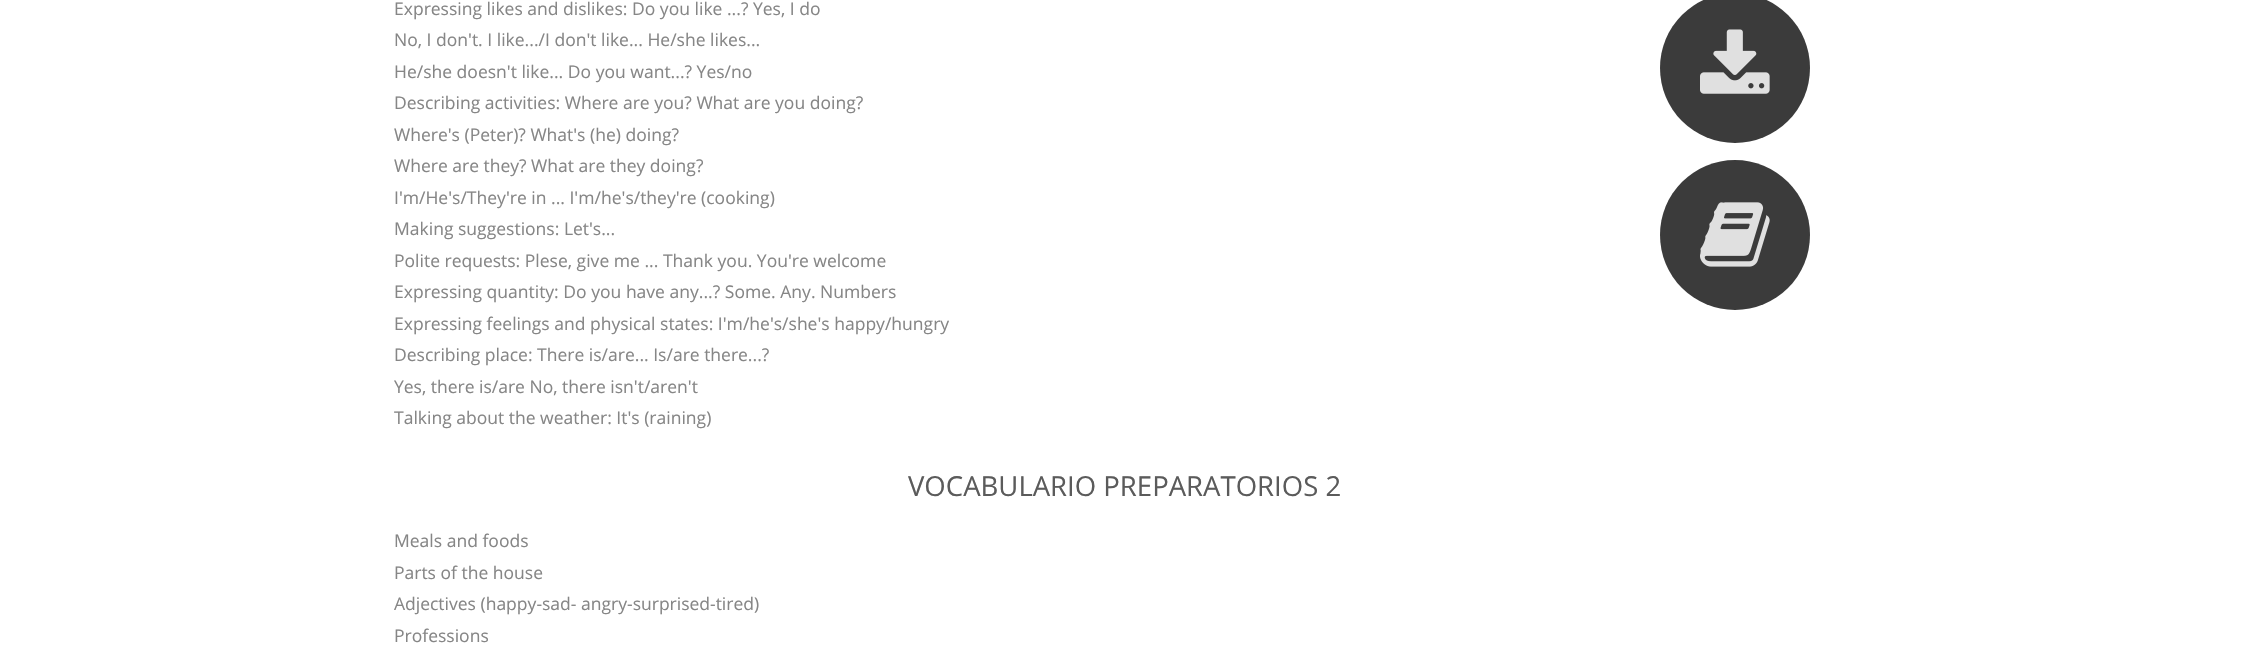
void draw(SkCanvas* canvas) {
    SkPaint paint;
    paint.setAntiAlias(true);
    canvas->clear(0xFFFFFFFF);
    SkFont font1(fontMgr->matchFamilyStyle("Open Sans", SkFontStyle::Normal()), 17.5f);
    font1.setSubpixel(true);
    paint.setColor(0xFF868686);
    canvas->drawString("Expressing likes and dislikes: Do you like ...? Yes, I do", 394, 15, font1, paint);
    canvas->drawString("No, I don't. I like.../I don't like... He/she likes...", 394, 46, font1, paint);
    canvas->drawString("He/she doesn't like... Do you want...? Yes/no", 394, 78, font1, paint);
    canvas->drawString("Describing activities: Where are you? What are you doing?", 394, 109, font1, paint);
    canvas->drawString("Where's (Peter)? What's (he) doing?", 394, 141, font1, paint);
    canvas->drawString("Where are they? What are they doing?", 394, 172, font1, paint);
    canvas->drawString("I'm/He's/They're in ... I'm/he's/they're (cooking)", 394, 204, font1, paint);
    canvas->drawString("Making suggestions: Let's...", 394, 235, font1, paint);
    canvas->drawString("Polite requests: Plese, give me ... Thank you. You're welcome", 394, 267, font1, paint);
    canvas->drawString("Expressing quantity: Do you have any...? Some. Any. Numbers", 394, 298, font1, paint);
    canvas->drawString("Expressing feelings and physical states: I'm/he's/she's happy/hungry", 394, 330, font1, paint);
    canvas->drawString("Describing place: There is/are... Is/are there...?", 394, 361, font1, paint);
    canvas->drawString("Yes, there is/are No, there isn't/aren't", 394, 393, font1, paint);
    canvas->drawString("Talking about the weather: It's (raining)", 394, 424, font1, paint);
    paint.setColor(0xFF3B3B3B);
    canvas->drawCircle(1735, 68, 75, paint);
    canvas->drawImageRect(SkImages::DeferredFromEncodedData(SkData::MakeFromFileName("img1.png")), SkRect::MakeXYWH(1700, 29, 70, 65), SkSamplingOptions());
    canvas->drawCircle(1735, 235, 75, paint);
    canvas->drawImageRect(SkImages::DeferredFromEncodedData(SkData::MakeFromFileName("img2.png")), SkRect::MakeXYWH(1700, 202, 70, 65), SkSamplingOptions());
    SkFont font2(fontMgr->matchFamilyStyle("Open Sans", SkFontStyle::Normal()), 27.5f);
    font2.setSubpixel(true);
    paint.setColor(0xFF5B5B5B);
    canvas->drawString("VOCABULARIO PREPARATORIOS 2", 908, 496, font2, paint);
    paint.setColor(0xFF868686);
    canvas->drawString("Meals and foods", 394, 547, font1, paint);
    canvas->drawString("Parts of the house", 394, 579, font1, paint);
    canvas->drawString("Adjectives (happy-sad- angry-surprised-tired)", 394, 610, font1, paint);
    canvas->drawString("Professions", 394, 642, font1, paint);
}
